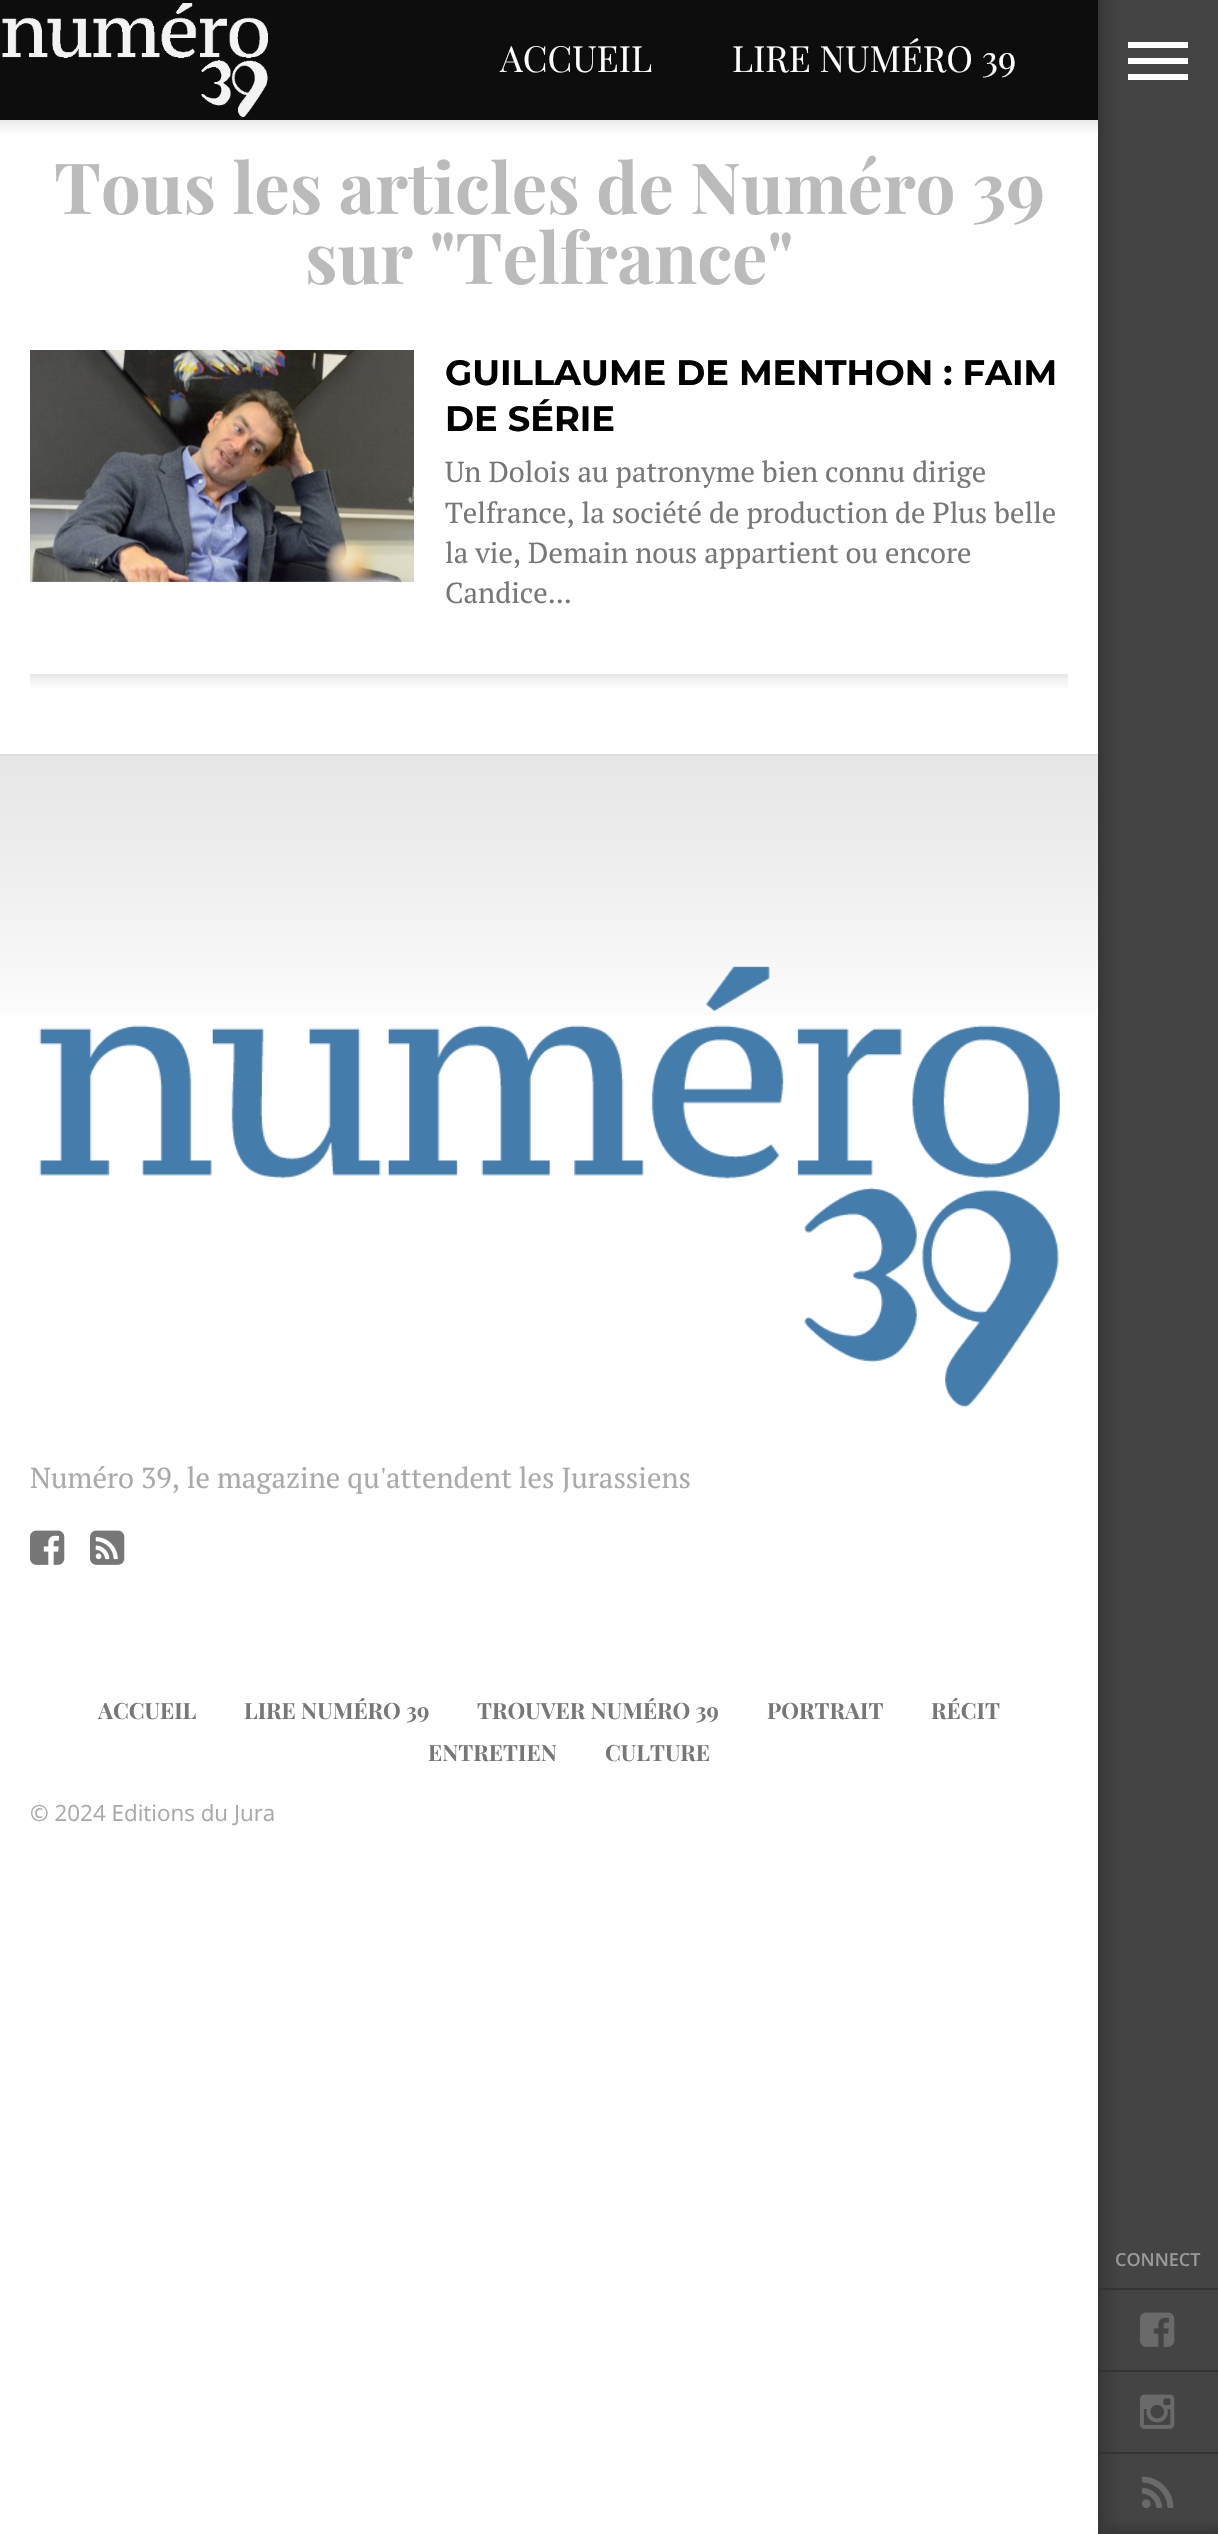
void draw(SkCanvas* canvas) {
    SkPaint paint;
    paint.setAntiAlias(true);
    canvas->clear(0xFFFFFFFF);
    paint.setColor(0xFF0D0D0D);
    canvas->drawRect(SkRect::MakeXYWH(0, 0, 1098, 120), paint);
    canvas->drawImageRect(SkImages::DeferredFromEncodedData(SkData::MakeFromFileName("img1.png")), SkRect::MakeXYWH(2, 3, 266, 115), SkSamplingOptions());
    SkFont font1(fontMgr->matchFamilyStyle("Playfair Display", SkFontStyle::Normal()), 36);
    font1.setSubpixel(true);
    paint.setColor(0xFFFFFFFF);
    canvas->drawString("ACCUEIL", 500, 72, font1, paint);
    canvas->drawString("LIRE NUMÉRO 39", 732, 72, font1, paint);
    {
        const SkColor colors[] = {0xFFFFFFFF, 0xFFF3F3F3, 0xFFE7E7E7};
        const float stops[] = {0.2f, 0.7f, 1};
        const SkPoint ends[] = {{549, 140}, {549, 120}};
        paint.setShader(SkGradientShader::MakeLinear(ends, colors, stops, 3, SkTileMode::kClamp));
        paint.setAlpha(255);
    }
    canvas->drawRect(SkRect::MakeXYWH(0, 120, 1098, 14), paint);
    SkFont font2(fontMgr->matchFamilyStyle("Playfair Display", SkFontStyle::Bold()), 70.4f);
    font2.setSubpixel(true);
    paint.setShader(nullptr);
    paint.setColor(0xFFBBBBBB);
    canvas->drawString("Tous les articles de Numéro 39", 54, 214, font2, paint);
    canvas->drawString("sur \"Telfrance\"", 305, 284, font2, paint);
    canvas->drawImageRect(SkImages::DeferredFromEncodedData(SkData::MakeFromFileName("img2.png")), SkRect::MakeXYWH(30, 350, 384, 232), SkSamplingOptions());
    SkFont font3(fontMgr->matchFamilyStyle("Montserrat", SkFontStyle::Bold()), 35.25f);
    font3.setSubpixel(true);
    paint.setColor(0xFF000000);
    canvas->drawString("GUILLAUME DE MENTHON : FAIM", 445, 385, font3, paint);
    canvas->drawString("DE SÉRIE", 445, 431, font3, paint);
    SkFont font4(fontMgr->matchFamilyStyle("PT Serif", SkFontStyle::Normal()), 28.8f);
    font4.setSubpixel(true);
    paint.setColor(0xFF777777);
    canvas->drawString("Un Dolois au patronyme bien connu dirige", 445, 482, font4, paint);
    canvas->drawString("Telfrance, la société de production de Plus belle", 445, 523, font4, paint);
    canvas->drawString("la vie, Demain nous appartient ou encore", 445, 563, font4, paint);
    canvas->drawString("Candice...", 445, 603, font4, paint);
    {
        const SkColor colors[] = {0xFFFFFFFF, 0xFFF2F2F2, 0xFFE6E6E6};
        const float stops[] = {0.2f, 0.7f, 1};
        const SkPoint ends[] = {{549, 694}, {549, 674}};
        paint.setShader(SkGradientShader::MakeLinear(ends, colors, stops, 3, SkTileMode::kClamp));
        paint.setAlpha(255);
    }
    canvas->drawRect(SkRect::MakeXYWH(30, 674, 1038, 14), paint);
    {
        const SkColor colors[] = {0xFFFFFFFF, 0xFFF3F3F3, 0xFFE6E6E6};
        const float stops[] = {0.75f, 0.85f, 1};
        const SkPoint ends[] = {{549, 1888}, {549, 756}};
        paint.setShader(SkGradientShader::MakeLinear(ends, colors, stops, 3, SkTileMode::kClamp));
        paint.setAlpha(255);
    }
    canvas->drawRect(SkRect::MakeXYWH(0, 756, 1098, 259), paint);
    paint.setShader(nullptr);
    paint.setColor(0xFFDDDDDD);
    canvas->drawRect(SkRect::MakeXYWH(0, 754, 1098, 2), paint);
    canvas->drawImageRect(SkImages::DeferredFromEncodedData(SkData::MakeFromFileName("img3.png")), SkRect::MakeXYWH(39, 966, 1021, 442), SkSamplingOptions());
    paint.setColor(0xFFAAAAAA);
    canvas->drawString("Numéro 39, le magazine qu'attendent les Jurassiens", 30, 1488, font4, paint);
    canvas->drawImageRect(SkImages::DeferredFromEncodedData(SkData::MakeFromFileName("img4.png")), SkRect::MakeXYWH(30, 1530, 35, 35), SkSamplingOptions());
    canvas->drawImageRect(SkImages::DeferredFromEncodedData(SkData::MakeFromFileName("img5.png")), SkRect::MakeXYWH(90, 1530, 35, 35), SkSamplingOptions());
    SkFont font5(fontMgr->matchFamilyStyle("Playfair Display", SkFontStyle::Bold()), 22.4f);
    font5.setSubpixel(true);
    paint.setColor(0xFF777777);
    canvas->drawString("ACCUEIL", 98, 1719, font5, paint);
    canvas->drawString("LIRE NUMÉRO 39", 244, 1719, font5, paint);
    canvas->drawString("TROUVER NUMÉRO 39", 477, 1719, font5, paint);
    canvas->drawString("PORTRAIT", 767, 1719, font5, paint);
    canvas->drawString("RÉCIT", 931, 1719, font5, paint);
    canvas->drawString("ENTRETIEN", 428, 1761, font5, paint);
    canvas->drawString("CULTURE", 605, 1761, font5, paint);
    SkFont font6(fontMgr->matchFamilyStyle("Open Sans", SkFontStyle::Normal()), 22.4f);
    font6.setSubpixel(true);
    paint.setColor(0xFFAAAAAA);
    canvas->drawString("© 2024 Editions du Jura", 30, 1821, font6, paint);
    {
        const SkColor colors[] = {0xFF444444, 0xFF3D3D3D, 0xFF363636};
        const float stops[] = {0.97f, 0.99f, 1};
        const SkPoint ends[] = {{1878, 1267}, {1098, 1267}};
        paint.setShader(SkGradientShader::MakeLinear(ends, colors, stops, 3, SkTileMode::kClamp));
        paint.setAlpha(255);
    }
    canvas->drawRect(SkRect::MakeXYWH(1098, 0, 120, 2534), paint);
    paint.setShader(nullptr);
    paint.setColor(0xFFFFFFFF);
    canvas->drawRect(SkRect::MakeXYWH(1128, 42, 60, 6), paint);
    canvas->drawRect(SkRect::MakeXYWH(1128, 58, 60, 6), paint);
    canvas->drawRect(SkRect::MakeXYWH(1128, 74, 60, 6), paint);
    SkFont font7(fontMgr->matchFamilyStyle("Open Sans", SkFontStyle(600, SkFontStyle::kNormal_Width, SkFontStyle::kUpright_Slant)), 18);
    font7.setSubpixel(true);
    paint.setColor(0xFF999999);
    canvas->drawString("CONNECT", 1115, 2266, font7, paint);
    paint.setColor(0xFF333333);
    canvas->drawRect(SkRect::MakeXYWH(1098, 2288, 120, 2), paint);
    canvas->drawImageRect(SkImages::DeferredFromEncodedData(SkData::MakeFromFileName("img6.png")), SkRect::MakeXYWH(1140, 2312, 35, 35), SkSamplingOptions());
    canvas->drawRect(SkRect::MakeXYWH(1098, 2370, 120, 2), paint);
    canvas->drawImageRect(SkImages::DeferredFromEncodedData(SkData::MakeFromFileName("img7.png")), SkRect::MakeXYWH(1140, 2394, 35, 35), SkSamplingOptions());
    canvas->drawRect(SkRect::MakeXYWH(1098, 2452, 120, 2), paint);
    canvas->drawImageRect(SkImages::DeferredFromEncodedData(SkData::MakeFromFileName("img8.png")), SkRect::MakeXYWH(1142, 2476, 32, 32), SkSamplingOptions());
    paint.setColor(0x33000000);
    paint.setMaskFilter(SkMaskFilter::MakeBlur(kNormal_SkBlurStyle, 6));
    canvas->drawRect(SkRect::MakeXYWH(1106, 2528, 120, 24), paint);
    paint.setMaskFilter(nullptr);
}
